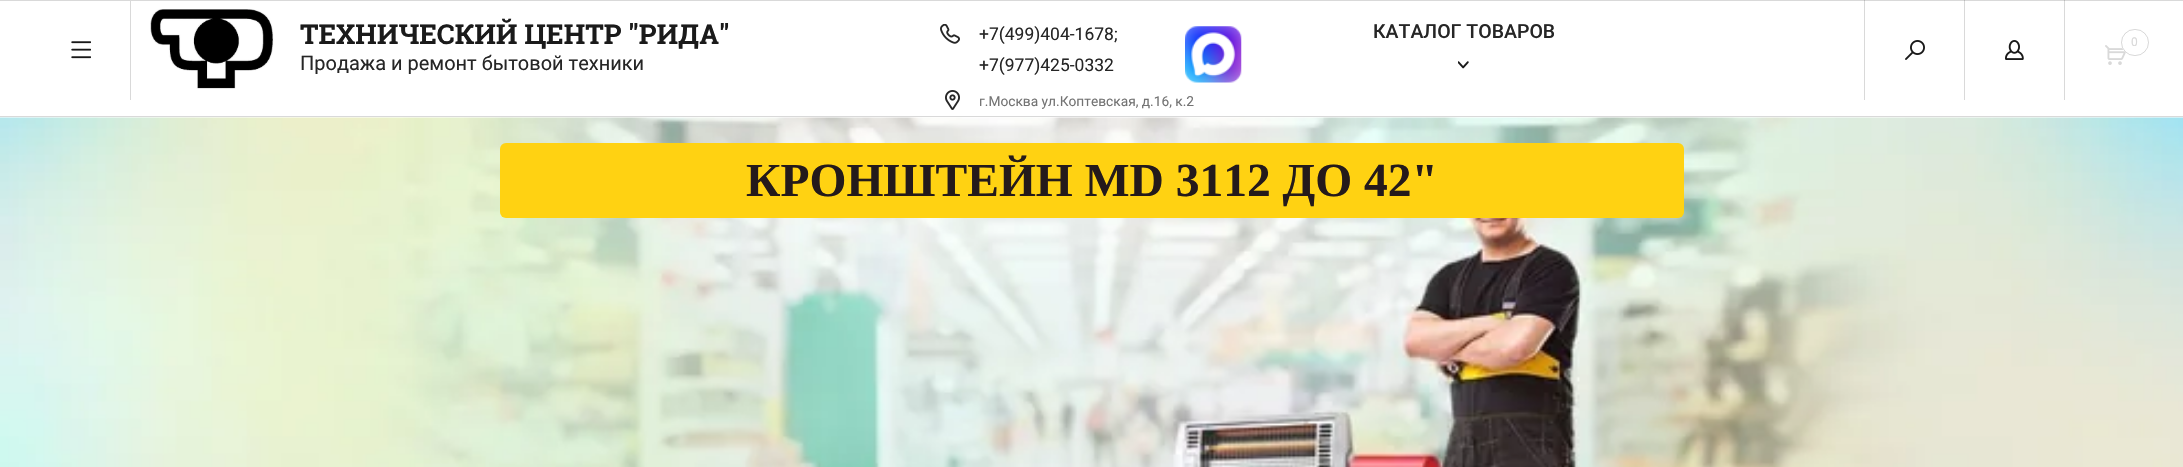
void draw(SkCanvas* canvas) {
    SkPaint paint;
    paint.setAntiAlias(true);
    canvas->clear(0xFFFFFFFF);
    paint.setColor(0xFFD9D9D9);
    canvas->drawRect(SkRect::MakeXYWH(1864, 0, 1, 100), paint);
    canvas->drawRect(SkRect::MakeXYWH(1964, 0, 1, 100), paint);
    canvas->drawRect(SkRect::MakeXYWH(2064, 0, 1, 100), paint);
    canvas->drawRect(SkRect::MakeXYWH(0, 116, 2183, 1), paint);
    canvas->drawImageRect(SkImages::DeferredFromEncodedData(SkData::MakeFromFileName("img1.png")), SkRect::MakeXYWH(71, 41, 20, 18), SkSamplingOptions());
    canvas->drawRect(SkRect::MakeXYWH(130, 0, 1, 100), paint);
    canvas->drawImageRect(SkImages::DeferredFromEncodedData(SkData::MakeFromFileName("img2.png")), SkRect::MakeXYWH(150, 9, 124, 80), SkSamplingOptions());
    SkFont font1(fontMgr->matchFamilyStyle("Roboto Slab", SkFontStyle::Bold()), 27.5f);
    font1.setSubpixel(true);
    paint.setColor(0xFF1A1A1A);
    canvas->drawString("ТЕХНИЧЕСКИЙ ЦЕНТР \"РИДА\"", 300, 44, font1, paint);
    SkFont font2(fontMgr->matchFamilyStyle("Roboto", SkFontStyle::Normal()), 20);
    font2.setSubpixel(true);
    paint.setColor(0xFF262626);
    canvas->drawString("Продажа и ремонт бытовой техники", 300, 70, font2, paint);
    canvas->drawImageRect(SkImages::DeferredFromEncodedData(SkData::MakeFromFileName("img3.png")), SkRect::MakeXYWH(940, 24, 20, 20), SkSamplingOptions());
    SkFont font3(fontMgr->matchFamilyStyle("Roboto", SkFontStyle::Normal()), 17.5f);
    font3.setSubpixel(true);
    canvas->drawString("+7(499)404-1678;", 979, 40, font3, paint);
    canvas->drawString("+7(977)425-0332", 979, 71, font3, paint);
    canvas->drawImageRect(SkImages::DeferredFromEncodedData(SkData::MakeFromFileName("img4.png")), SkRect::MakeXYWH(1185, 26, 57, 57), SkSamplingOptions());
    canvas->drawImageRect(SkImages::DeferredFromEncodedData(SkData::MakeFromFileName("img5.png")), SkRect::MakeXYWH(945, 90, 15, 20), SkSamplingOptions());
    SkFont font4(fontMgr->matchFamilyStyle("Roboto", SkFontStyle::Normal()), 13.75f);
    font4.setSubpixel(true);
    paint.setColor(0xFF737373);
    canvas->drawString("г.Москва ул.Коптевская, д.16, к.2", 979, 106, font4, paint);
    SkFont font5(fontMgr->matchFamilyStyle("Roboto", SkFontStyle(500, SkFontStyle::kNormal_Width, SkFontStyle::kUpright_Slant)), 19.5f);
    font5.setSubpixel(true);
    paint.setColor(0xFF262626);
    canvas->drawString("КАТАЛОГ ТОВАРОВ", 1373, 38, font5, paint);
    canvas->drawImageRect(SkImages::DeferredFromEncodedData(SkData::MakeFromFileName("img6.png")), SkRect::MakeXYWH(1458, 61, 11, 8), SkSamplingOptions());
    paint.setColor(0xFFD9D9D9);
    canvas->drawRect(SkRect::MakeXYWH(0, 0, 2183, 1), paint);
    paint.setColor(0xFFB8B8B8);
    canvas->drawRect(SkRect::MakeXYWH(1864, 0, 1, 1), paint);
    canvas->drawRect(SkRect::MakeXYWH(1964, 0, 1, 1), paint);
    canvas->drawRect(SkRect::MakeXYWH(2064, 0, 1, 1), paint);
    canvas->drawImageRect(SkImages::DeferredFromEncodedData(SkData::MakeFromFileName("img7.png")), SkRect::MakeXYWH(1905, 40, 20, 20), SkSamplingOptions());
    canvas->drawImageRect(SkImages::DeferredFromEncodedData(SkData::MakeFromFileName("img8.png")), SkRect::MakeXYWH(2005, 40, 19, 20), SkSamplingOptions());
    canvas->drawImageRect(SkImages::DeferredFromEncodedData(SkData::MakeFromFileName("img9.png")), SkRect::MakeXYWH(2105, 45, 21, 20), SkSamplingOptions());
    paint.setColor(0xFFFFFFFF);
    canvas->drawRoundRect(SkRect::MakeXYWH(2121, 29, 28, 27), 13.5f, 13.5f, paint);
    paint.setStyle(SkPaint::kStroke_Style);
    paint.setStrokeWidth(1);
    paint.setColor(0x26000000);
    canvas->drawRoundRect(SkRect::MakeXYWH(2121.5f, 29.5f, 27, 26), 13, 13, paint);
    SkFont font6(fontMgr->matchFamilyStyle("Roboto", SkFontStyle::Normal()), 12);
    font6.setSubpixel(true);
    paint.setStyle(SkPaint::kFill_Style);
    paint.setColor(0xFFD9D9D9);
    canvas->drawString("0", 2131, 46, font6, paint);
    canvas->drawImageRect(SkImages::DeferredFromEncodedData(SkData::MakeFromFileName("img10.png")), SkRect::MakeXYWH(0, 117, 2183, 350), SkSamplingOptions());
    paint.setColor(0xFFFFD212);
    canvas->drawRoundRect(SkRect::MakeXYWH(500, 143, 1184, 75), 6, 6, paint);
    SkFont font7(fontMgr->matchFamilyStyle("Liberation Serif", SkFontStyle::Bold()), 47.5f);
    font7.setSubpixel(true);
    paint.setColor(0xFF241A1B);
    canvas->drawString("КРОНШТЕЙН MD 3112 ДО 42\"", 746, 196, font7, paint);
}
